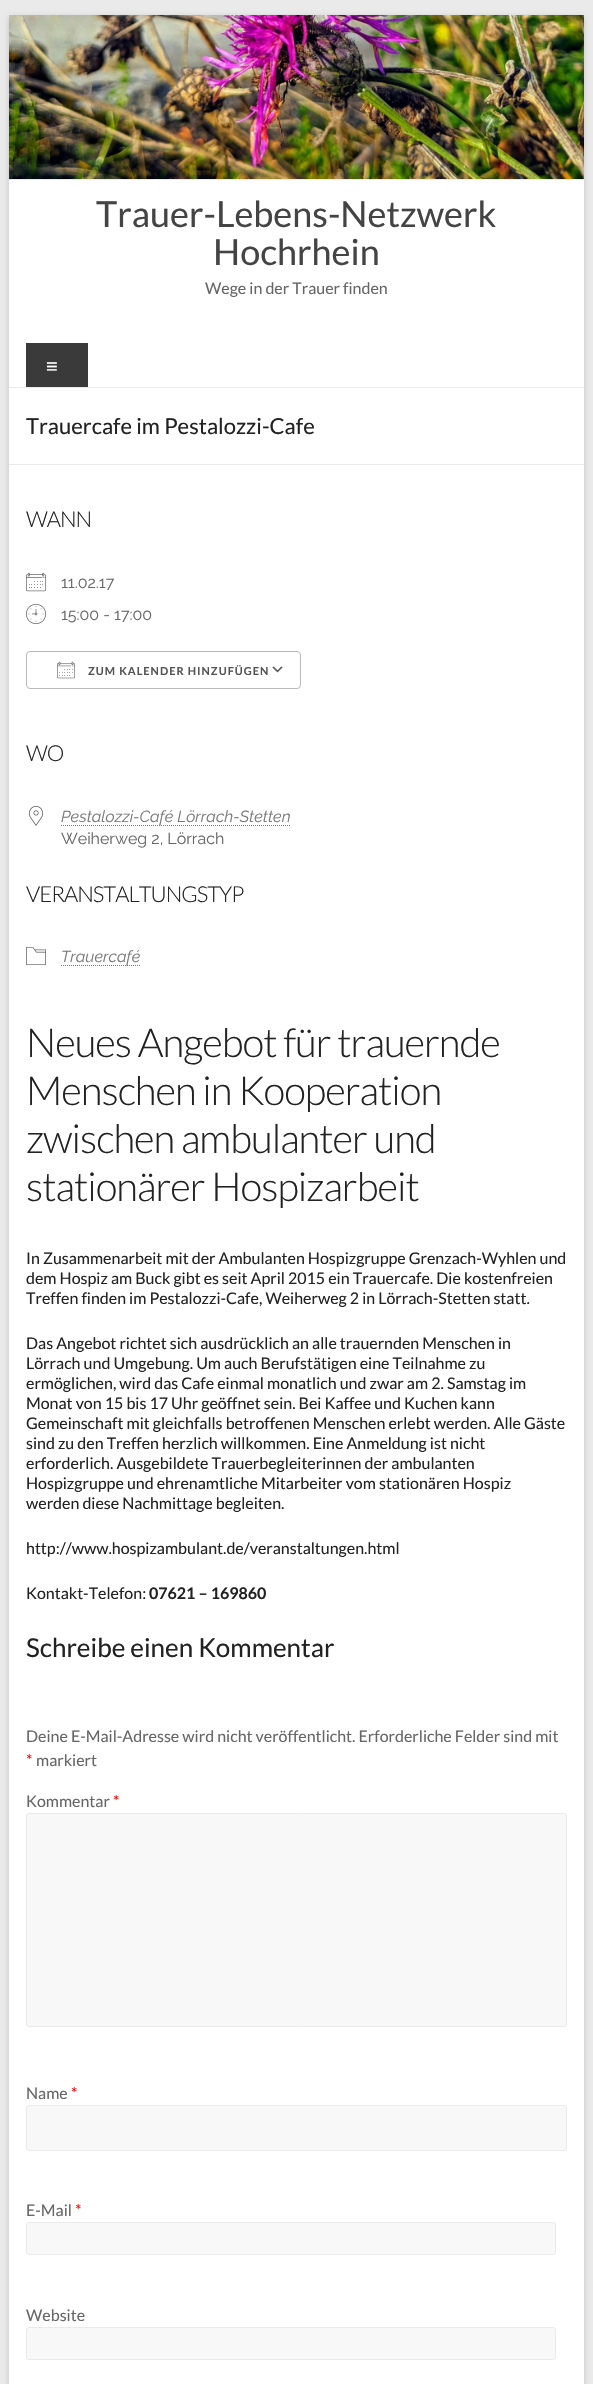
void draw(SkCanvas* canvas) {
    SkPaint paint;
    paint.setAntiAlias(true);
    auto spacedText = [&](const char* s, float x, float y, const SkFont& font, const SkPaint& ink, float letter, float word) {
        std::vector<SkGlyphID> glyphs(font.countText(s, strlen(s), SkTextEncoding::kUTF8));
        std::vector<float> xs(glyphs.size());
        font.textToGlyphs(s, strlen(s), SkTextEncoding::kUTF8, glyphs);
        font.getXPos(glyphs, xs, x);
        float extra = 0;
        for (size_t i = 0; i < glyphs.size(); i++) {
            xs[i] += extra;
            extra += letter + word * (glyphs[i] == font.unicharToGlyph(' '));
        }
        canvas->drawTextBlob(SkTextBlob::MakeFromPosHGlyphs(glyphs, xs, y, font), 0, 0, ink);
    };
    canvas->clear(0xFFEAEAEA);
    paint.setColor(0x4D646464);
    paint.setMaskFilter(SkMaskFilter::MakeBlur(kNormal_SkBlurStyle, 3));
    canvas->drawRect(SkRect::MakeXYWH(9, 17, 575, 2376), paint);
    paint.setMaskFilter(nullptr);
    paint.setColor(0xFFFFFFFF);
    canvas->drawRect(SkRect::MakeXYWH(9, 180, 575, 2204), paint);
    canvas->drawImageRect(SkImages::DeferredFromEncodedData(SkData::MakeFromFileName("img1.png")), SkRect::MakeXYWH(9, 15, 575, 164), SkSamplingOptions());
    paint.setColor(0xFFEAEAEA);
    canvas->drawRect(SkRect::MakeXYWH(9, 179, 575, 1), paint);
    canvas->drawRect(SkRect::MakeXYWH(9, 387, 575, 1), paint);
    SkFont font1(fontMgr->matchFamilyStyle("Lato", SkFontStyle::Normal()), 36);
    font1.setSubpixel(true);
    paint.setColor(0xFF444444);
    canvas->drawString("Trauer-Lebens-Netzwerk", 96, 227, font1, paint);
    canvas->drawString("Hochrhein", 213, 265, font1, paint);
    SkFont font2(fontMgr->matchFamilyStyle("Lato", SkFontStyle::Normal()), 16);
    font2.setSubpixel(true);
    paint.setColor(0xFF666666);
    canvas->drawString("Wege in der Trauer finden", 205, 294, font2, paint);
    paint.setColor(0xFF3A3A3A);
    canvas->drawRect(SkRect::MakeXYWH(26, 343, 62, 44), paint);
    SkFont font3(fontMgr->matchFamilyStyle("Liberation Sans", SkFontStyle::Normal()), 20);
    font3.setSubpixel(true);
    paint.setColor(0xFFFFFFFF);
    canvas->drawString("≡", 46, 373, font3, paint);
    paint.setColor(0xFFEAEAEA);
    canvas->drawRect(SkRect::MakeXYWH(9, 464, 575, 1), paint);
    SkFont font4(fontMgr->matchFamilyStyle("Lato", SkFontStyle::Normal()), 22);
    font4.setSubpixel(true);
    paint.setColor(0xFF222222);
    canvas->drawString("Trauercafe im Pestalozzi-Cafe", 26, 434, font4, paint);
    SkFont font5(fontMgr->matchFamilyStyle("Lato", SkFontStyle(300, SkFontStyle::kNormal_Width, SkFontStyle::kUpright_Slant)), 22);
    font5.setSubpixel(true);
    spacedText("WANN", 26, 527, font5, paint, -1, 0);
    canvas->drawImageRect(SkImages::DeferredFromEncodedData(SkData::MakeFromFileName("img2.png")), SkRect::MakeXYWH(26, 572, 20, 20), SkSamplingOptions());
    SkFont font6(fontMgr->matchFamilyStyle("Raleway", SkFontStyle::Normal()), 16);
    font6.setSubpixel(true);
    paint.setColor(0xFF666666);
    canvas->drawString("11.02.17", 61, 588, font6, paint);
    canvas->drawImageRect(SkImages::DeferredFromEncodedData(SkData::MakeFromFileName("img3.png")), SkRect::MakeXYWH(26, 604, 20, 20), SkSamplingOptions());
    canvas->drawString("15:00 - 17:00", 61, 620, font6, paint);
    canvas->drawImageRect(SkImages::DeferredFromEncodedData(SkData::MakeFromFileName("img4.png")), SkRect::MakeXYWH(272, 666, 11, 7), SkSamplingOptions());
    paint.setStyle(SkPaint::kStroke_Style);
    paint.setStrokeWidth(1);
    paint.setColor(0xFFBABABA);
    canvas->drawRoundRect(SkRect::MakeXYWH(26.5f, 651.5f, 274, 37), 3.5f, 3.5f, paint);
    canvas->drawImageRect(SkImages::DeferredFromEncodedData(SkData::MakeFromFileName("img5.png")), SkRect::MakeXYWH(57, 661, 18, 18), SkSamplingOptions());
    SkFont font7(fontMgr->matchFamilyStyle("Lato", SkFontStyle::Bold()), 11);
    font7.setSubpixel(true);
    paint.setStyle(SkPaint::kFill_Style);
    paint.setColor(0xFF545454);
    spacedText("ZUM KALENDER HINZUFÜGEN", 88, 675, font7, paint, 1, 0);
    paint.setColor(0xFF222222);
    spacedText("WO", 26, 761, font5, paint, -1, 0);
    canvas->drawImageRect(SkImages::DeferredFromEncodedData(SkData::MakeFromFileName("img6.png")), SkRect::MakeXYWH(29, 806, 14, 20), SkSamplingOptions());
    paint.setStyle(SkPaint::kStroke_Style);
    paint.setColor(0xFF787878);
    paint.setPathEffect(SkDashPathEffect::Make({{1, 1}}, 0));
    canvas->drawPath(SkPathBuilder().moveTo(61, 825.5f).lineTo(290.5f, 825.5f).detach(), paint);
    paint.setPathEffect(nullptr);
    SkFont font8(fontMgr->matchFamilyStyle("Raleway", SkFontStyle::Italic()), 16);
    font8.setSubpixel(true);
    paint.setStyle(SkPaint::kFill_Style);
    canvas->drawString("Pestalozzi-Café Lörrach-Stetten", 61, 822, font8, paint);
    paint.setColor(0xFF666666);
    canvas->drawString("Weiherweg 2, Lörrach", 61, 844, font6, paint);
    paint.setColor(0xFF222222);
    spacedText("VERANSTALTUNGSTYP", 26, 902, font5, paint, -1, 0);
    canvas->drawImageRect(SkImages::DeferredFromEncodedData(SkData::MakeFromFileName("img7.png")), SkRect::MakeXYWH(26, 947, 20, 18), SkSamplingOptions());
    paint.setStyle(SkPaint::kStroke_Style);
    paint.setColor(0xFF787878);
    paint.setPathEffect(SkDashPathEffect::Make({{1, 1}}, 0));
    canvas->drawPath(SkPathBuilder().moveTo(61, 965.5f).lineTo(140.5f, 965.5f).detach(), paint);
    paint.setPathEffect(nullptr);
    paint.setStyle(SkPaint::kFill_Style);
    canvas->drawString("Trauercafé", 61, 962, font8, paint);
    SkFont font9(fontMgr->matchFamilyStyle("Lato", SkFontStyle(300, SkFontStyle::kNormal_Width, SkFontStyle::kUpright_Slant)), 40);
    font9.setSubpixel(true);
    paint.setColor(0xFF222222);
    spacedText("Neues Angebot für trauernde", 26, 1057, font9, paint, -1, 0);
    spacedText("Menschen in Kooperation", 26, 1105, font9, paint, -1, 0);
    spacedText("zwischen ambulanter und", 26, 1153, font9, paint, -1, 0);
    spacedText("stationärer Hospizarbeit", 26, 1201, font9, paint, -1, 0);
    canvas->drawString("In Zusammenarbeit mit der Ambulanten Hospizgruppe Grenzach-Wyhlen und", 26, 1264, font2, paint);
    canvas->drawString("dem Hospiz am Buck gibt es seit April 2015 ein Trauercafe. Die kostenfreien", 26, 1284, font2, paint);
    canvas->drawString("Treffen finden im Pestalozzi-Cafe, Weiherweg 2 in Lörrach-Stetten statt.", 26, 1304, font2, paint);
    canvas->drawString("Das Angebot richtet sich ausdrücklich an alle trauernden Menschen in", 26, 1349, font2, paint);
    canvas->drawString("Lörrach und Umgebung. Um auch Berufstätigen eine Teilnahme zu", 26, 1369, font2, paint);
    canvas->drawString("ermöglichen, wird das Cafe einmal monatlich und zwar am 2. Samstag im", 26, 1389, font2, paint);
    canvas->drawString("Monat von 15 bis 17 Uhr geöffnet sein. Bei Kaffee und Kuchen kann", 26, 1409, font2, paint);
    canvas->drawString("Gemeinschaft mit gleichfalls betroffenen Menschen erlebt werden. Alle Gäste", 26, 1429, font2, paint);
    canvas->drawString("sind zu den Treffen herzlich willkommen. Eine Anmeldung ist nicht", 26, 1449, font2, paint);
    canvas->drawString("erforderlich. Ausgebildete Trauerbegleiterinnen der ambulanten", 26, 1469, font2, paint);
    canvas->drawString("Hospizgruppe und ehrenamtliche Mitarbeiter vom stationären Hospiz", 26, 1489, font2, paint);
    canvas->drawString("werden diese Nachmittage begleiten.", 26, 1509, font2, paint);
    canvas->drawString("http://www.hospizambulant.de/veranstaltungen.html", 26, 1554, font2, paint);
    canvas->drawString("Kontakt-Telefon:", 26, 1599, font2, paint);
    SkFont font10(fontMgr->matchFamilyStyle("Lato", SkFontStyle::Bold()), 16);
    font10.setSubpixel(true);
    canvas->drawString("07621 – 169860", 149, 1599, font10, paint);
    SkFont font11(fontMgr->matchFamilyStyle("Lato", SkFontStyle::Normal()), 26);
    font11.setSubpixel(true);
    canvas->drawString("Schreibe einen Kommentar", 26, 1657, font11, paint);
    paint.setColor(0xFF666666);
    canvas->drawString("Deine E-Mail-Adresse wird nicht veröffentlicht. Erforderliche Felder sind mit", 26, 1742, font2, paint);
    paint.setColor(0xFFFF0000);
    canvas->drawString("*", 26, 1766, font2, paint);
    paint.setColor(0xFF666666);
    canvas->drawString("markiert", 36, 1766, font2, paint);
    canvas->drawString("Kommentar", 26, 1807, font2, paint);
    paint.setColor(0xFFFF0000);
    canvas->drawString("*", 113, 1807, font2, paint);
    paint.setColor(0xFFF8F8F8);
    canvas->drawRoundRect(SkRect::MakeXYWH(26.5f, 1813.5f, 540, 213), 2.5f, 2.5f, paint);
    paint.setStyle(SkPaint::kStroke_Style);
    paint.setColor(0xFFEAEAEA);
    canvas->drawRoundRect(SkRect::MakeXYWH(26.5f, 1813.5f, 540, 213), 2.5f, 2.5f, paint);
    paint.setStyle(SkPaint::kFill_Style);
    paint.setColor(0xFF666666);
    canvas->drawString("Name", 26, 2099, font2, paint);
    paint.setColor(0xFFFF0000);
    canvas->drawString("*", 71, 2099, font2, paint);
    paint.setColor(0xFFF8F8F8);
    canvas->drawRoundRect(SkRect::MakeXYWH(26.5f, 2105.5f, 540, 45), 2.5f, 2.5f, paint);
    paint.setStyle(SkPaint::kStroke_Style);
    paint.setColor(0xFFEAEAEA);
    canvas->drawRoundRect(SkRect::MakeXYWH(26.5f, 2105.5f, 540, 45), 2.5f, 2.5f, paint);
    paint.setStyle(SkPaint::kFill_Style);
    paint.setColor(0xFF666666);
    canvas->drawString("E-Mail", 26, 2216, font2, paint);
    paint.setColor(0xFFFF0000);
    canvas->drawString("*", 75, 2216, font2, paint);
    paint.setColor(0xFFF8F8F8);
    canvas->drawRoundRect(SkRect::MakeXYWH(26.5f, 2222.5f, 529, 32), 2.5f, 2.5f, paint);
    paint.setStyle(SkPaint::kStroke_Style);
    paint.setColor(0xFFEAEAEA);
    canvas->drawRoundRect(SkRect::MakeXYWH(26.5f, 2222.5f, 529, 32), 2.5f, 2.5f, paint);
    paint.setStyle(SkPaint::kFill_Style);
    paint.setColor(0xFF666666);
    canvas->drawString("Website", 26, 2321, font2, paint);
    paint.setColor(0xFFF8F8F8);
    canvas->drawRoundRect(SkRect::MakeXYWH(26.5f, 2327.5f, 529, 32), 2.5f, 2.5f, paint);
    paint.setStyle(SkPaint::kStroke_Style);
    paint.setColor(0xFFEAEAEA);
    canvas->drawRoundRect(SkRect::MakeXYWH(26.5f, 2327.5f, 529, 32), 2.5f, 2.5f, paint);
}
